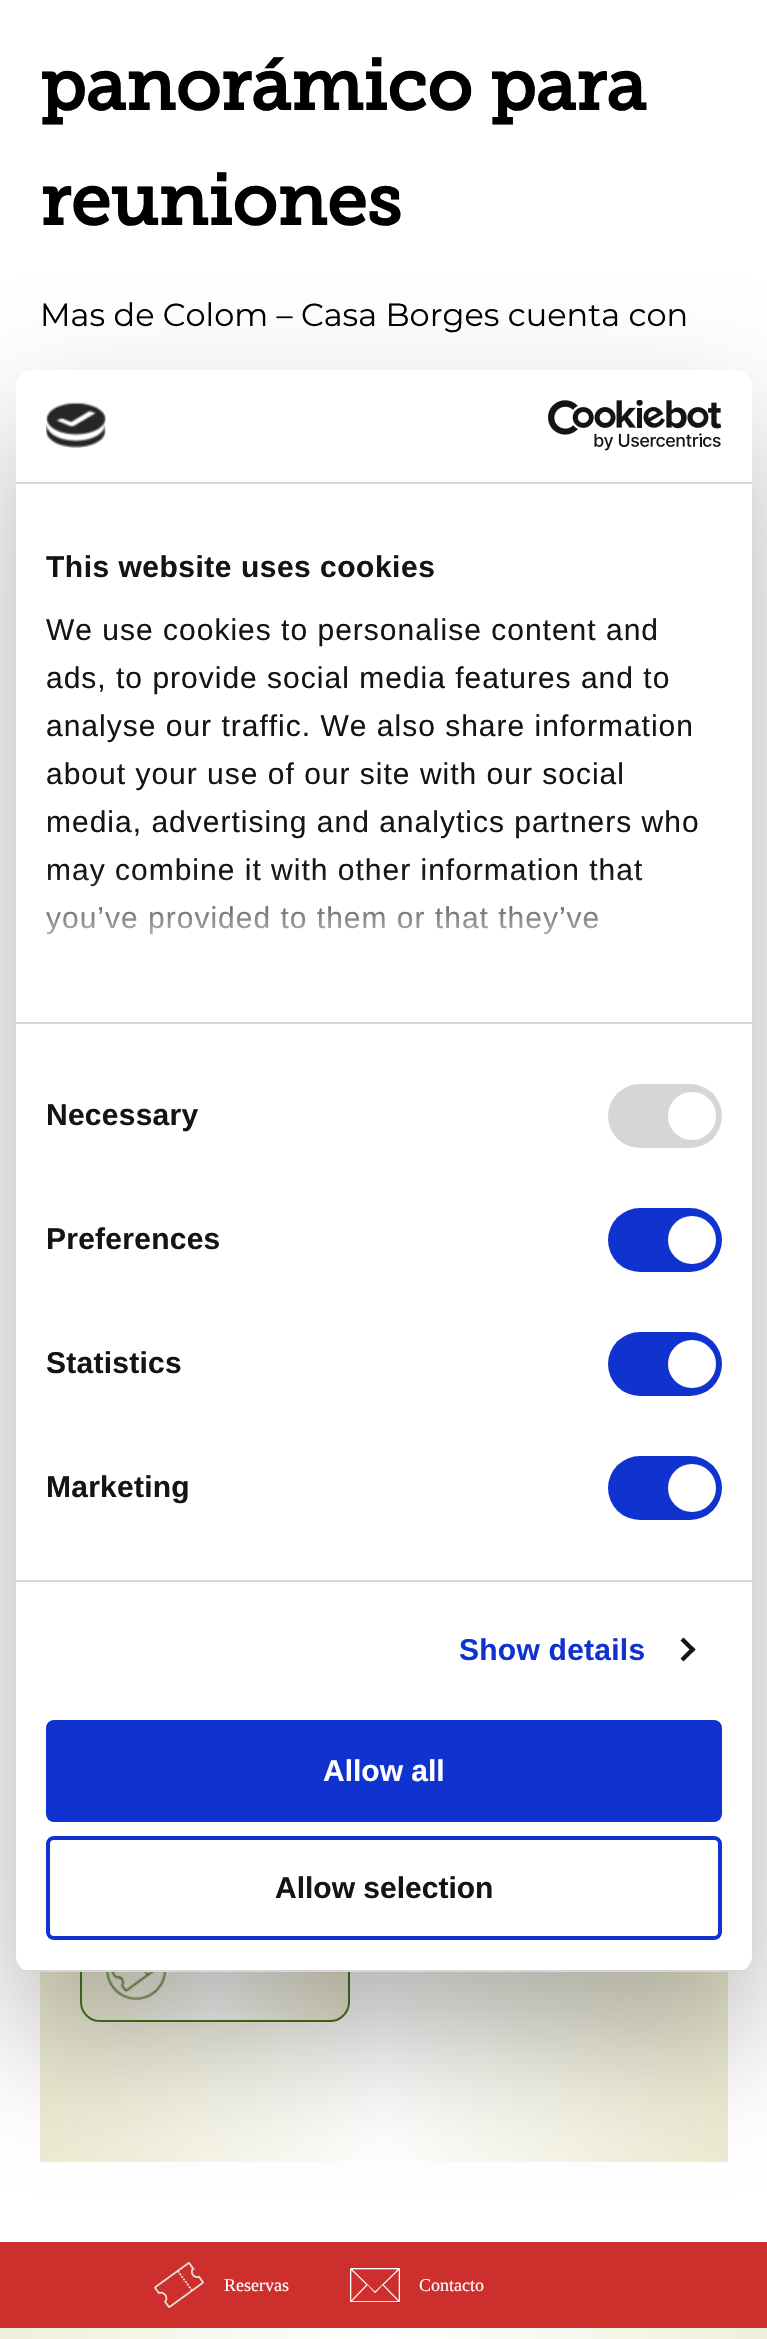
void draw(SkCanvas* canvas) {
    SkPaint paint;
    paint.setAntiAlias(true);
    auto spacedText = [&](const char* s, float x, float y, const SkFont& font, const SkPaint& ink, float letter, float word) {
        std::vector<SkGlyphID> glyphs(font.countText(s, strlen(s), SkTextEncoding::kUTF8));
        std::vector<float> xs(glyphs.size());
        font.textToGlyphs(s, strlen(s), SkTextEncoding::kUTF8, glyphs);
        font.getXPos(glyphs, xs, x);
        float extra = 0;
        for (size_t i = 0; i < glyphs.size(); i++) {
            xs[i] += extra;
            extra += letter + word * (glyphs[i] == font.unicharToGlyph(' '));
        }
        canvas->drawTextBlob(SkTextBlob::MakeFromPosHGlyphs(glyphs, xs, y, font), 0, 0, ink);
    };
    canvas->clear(0xFFFFFFFF);
    SkFont font1(fontMgr->matchFamilyStyle("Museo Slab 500", SkFontStyle::Bold()), 72);
    font1.setSubpixel(true);
    paint.setColor(0xFF000000);
    canvas->drawString("panorámico para", 40, 110, font1, paint);
    canvas->drawString("reuniones", 40, 225, font1, paint);
    SkFont font2(fontMgr->matchFamilyStyle("Montserrat", SkFontStyle::Normal()), 32);
    font2.setSubpixel(true);
    canvas->drawString("Mas de Colom – Casa Borges cuenta con", 40, 326, font2, paint);
    {
        const SkColor colors[] = {0xFFEDEBD1, 0xFFFFFFFF, 0xFFEDEBD1};
        const float stops[] = {0, 0.5f, 1};
        const SkPoint ends[] = {{40, 1684}, {728, 1684}};
        paint.setShader(SkGradientShader::MakeLinear(ends, colors, stops, 3, SkTileMode::kClamp));
        paint.setAlpha(255);
    }
    canvas->drawRect(SkRect::MakeXYWH(40, 1972, 688, 190), paint);
    canvas->save();
    canvas->clipPath(SkPathBuilder().moveTo(100, 1918).lineTo(330, 1918).cubicTo(341, 1918, 350, 1927, 350, 1938).lineTo(350, 2002).cubicTo(350, 2013, 341, 2022, 330, 2022).lineTo(100, 2022).cubicTo(89, 2022, 80, 2013, 80, 2002).lineTo(80, 1938).cubicTo(80, 1927, 89, 1918, 100, 1918).close().detach(), true);
    {
        const SkColor colors[] = {0xFFEDEBD1, 0xFFFFFFFF, 0xFFEDEBD1};
        const float stops[] = {0, 0.5f, 1};
        const SkPoint ends[] = {{82, 1970}, {348, 1970}};
        paint.setShader(SkGradientShader::MakeLinear(ends, colors, stops, 3, SkTileMode::kClamp));
        paint.setAlpha(255);
    }
    canvas->drawRect(SkRect::MakeXYWH(82, 1972, 266, 50), paint);
    canvas->restore();
    paint.setStyle(SkPaint::kStroke_Style);
    paint.setStrokeWidth(2);
    paint.setShader(nullptr);
    paint.setColor(0xFF477622);
    canvas->drawRoundRect(SkRect::MakeXYWH(81, 1919, 268, 102), 19, 19, paint);
    canvas->drawImageRect(SkImages::DeferredFromEncodedData(SkData::MakeFromFileName("img1.png")), SkRect::MakeXYWH(106, 1972, 60, 28), SkSamplingOptions());
    paint.setStyle(SkPaint::kFill_Style);
    paint.setColor(0x4D000000);
    paint.setMaskFilter(SkMaskFilter::MakeBlur(kNormal_SkBlurStyle, 68));
    canvas->drawRoundRect(SkRect::MakeXYWH(16, 434, 736, 1602), 16, 16, paint);
    paint.setMaskFilter(nullptr);
    paint.setColor(0xFFFFFFFF);
    canvas->drawRoundRect(SkRect::MakeXYWH(16, 370, 736, 1602), 16, 16, paint);
    paint.setColor(0xFFD6D6D6);
    canvas->drawRect(SkRect::MakeXYWH(16, 482, 736, 2), paint);
    canvas->drawImageRect(SkImages::DeferredFromEncodedData(SkData::MakeFromFileName("img2.png")), SkRect::MakeXYWH(46, 402, 60, 46), SkSamplingOptions());
    canvas->drawImageRect(SkImages::DeferredFromEncodedData(SkData::MakeFromFileName("img3.png")), SkRect::MakeXYWH(548, 400, 174, 51), SkSamplingOptions());
    canvas->drawRect(SkRect::MakeXYWH(16, 1022, 736, 2), paint);
    SkFont font3(fontMgr->matchFamilyStyle("Liberation Sans", SkFontStyle::Bold()), 30);
    font3.setSubpixel(true);
    paint.setColor(0xFF141414);
    spacedText("This website uses cookies", 46, 577, font3, paint, 0.5f, 0);
    SkFont font4(fontMgr->matchFamilyStyle("Liberation Sans", SkFontStyle::Normal()), 30);
    font4.setSubpixel(true);
    spacedText("We use cookies to personalise content and", 46, 640, font4, paint, 1, 0);
    spacedText("ads, to provide social media features and to", 46, 688, font4, paint, 1, 0);
    spacedText("analyse our traffic. We also share information", 46, 736, font4, paint, 1, 0);
    spacedText("about your use of our site with our social", 46, 784, font4, paint, 1, 0);
    spacedText("media, advertising and analytics partners who", 46, 832, font4, paint, 1, 0);
    spacedText("may combine it with other information that", 46, 880, font4, paint, 1, 0);
    spacedText("you’ve provided to them or that they’ve", 46, 928, font4, paint, 1, 0);
    {
        const SkColor colors[] = {0xFFFFFFFF, 0xCCFFFFFF, 0x00FFFFFF};
        const float stops[] = {0, 0.5f, 1};
        const SkPoint ends[] = {{371, 1022}, {371, 872}};
        paint.setShader(SkGradientShader::MakeLinear(ends, colors, stops, 3, SkTileMode::kClamp));
        paint.setAlpha(255);
    }
    canvas->drawRect(SkRect::MakeXYWH(46, 874, 596, 61), paint);
    paint.setShader(nullptr);
    paint.setColor(0xFFD6D6D6);
    canvas->drawRect(SkRect::MakeXYWH(16, 1580, 736, 2), paint);
    paint.setColor(0xFF141414);
    spacedText("Necessary", 46, 1125, font3, paint, 0.25f, 0);
    paint.setColor(0xFFD6D6D6);
    canvas->drawRoundRect(SkRect::MakeXYWH(608, 1084, 114, 64), 32, 32, paint);
    paint.setColor(0xFFFFFFFF);
    canvas->drawCircle(692, 1116, 24, paint);
    paint.setColor(0xFF141414);
    spacedText("Preferences", 46, 1249, font3, paint, 0.25f, 0);
    paint.setColor(0xFF1032CF);
    canvas->drawRoundRect(SkRect::MakeXYWH(608, 1208, 114, 64), 32, 32, paint);
    paint.setColor(0xFFFFFFFF);
    canvas->drawCircle(692, 1240, 24, paint);
    paint.setColor(0xFF141414);
    spacedText("Statistics", 46, 1373, font3, paint, 0.25f, 0);
    paint.setColor(0xFF1032CF);
    canvas->drawRoundRect(SkRect::MakeXYWH(608, 1332, 114, 64), 32, 32, paint);
    paint.setColor(0xFFFFFFFF);
    canvas->drawCircle(692, 1364, 24, paint);
    paint.setColor(0xFF141414);
    spacedText("Marketing", 46, 1497, font3, paint, 0.25f, 0);
    paint.setColor(0xFF1032CF);
    canvas->drawRoundRect(SkRect::MakeXYWH(608, 1456, 114, 64), 32, 32, paint);
    paint.setColor(0xFFFFFFFF);
    canvas->drawCircle(692, 1488, 24, paint);
    paint.setColor(0xFF1032CF);
    spacedText("Show details", 459, 1660, font3, paint, 0.25f, 0);
    paint.setColor(0xFF141414);
    canvas->drawPath(SkPathBuilder().moveTo(683.5f, 1637.5f).lineTo(695.5f, 1649.5f).lineTo(692.5f, 1652.5f).lineTo(680.5f, 1640.5f).close().detach(), paint);
    canvas->drawPath(SkPathBuilder().moveTo(692.5f, 1646.5f).lineTo(695.5f, 1649.5f).lineTo(683.5f, 1661.5f).lineTo(680.5f, 1658.5f).close().detach(), paint);
    canvas->save();
    canvas->clipPath(SkPathBuilder().moveTo(32, 370).lineTo(736, 370).cubicTo(745, 370, 752, 377, 752, 386).lineTo(752, 1956).cubicTo(752, 1965, 745, 1972, 736, 1972).lineTo(32, 1972).cubicTo(23, 1972, 16, 1965, 16, 1956).lineTo(16, 386).cubicTo(16, 377, 23, 370, 32, 370).close().detach(), true);
    paint.setColor(0xFFD6D6D6);
    canvas->drawRect(SkRect::MakeXYWH(16, 1970, 736, 2), paint);
    canvas->restore();
    paint.setColor(0xFF1032CF);
    canvas->drawRoundRect(SkRect::MakeXYWH(48, 1722, 672, 98), 6, 6, paint);
    paint.setStyle(SkPaint::kStroke_Style);
    paint.setStrokeWidth(4);
    canvas->drawRoundRect(SkRect::MakeXYWH(48, 1722, 672, 98), 6, 6, paint);
    paint.setStyle(SkPaint::kFill_Style);
    paint.setColor(0xFFFFFFFF);
    canvas->drawString("Allow all", 323, 1781, font3, paint);
    paint.setStyle(SkPaint::kStroke_Style);
    paint.setColor(0xFF1032CF);
    canvas->drawRoundRect(SkRect::MakeXYWH(48, 1838, 672, 100), 6, 6, paint);
    paint.setStyle(SkPaint::kFill_Style);
    paint.setColor(0xFF141414);
    canvas->drawString("Allow selection", 275, 1898, font3, paint);
    paint.setColor(0xFFCD2F2C);
    canvas->drawRect(SkRect::MakeXYWH(0, 2242, 767, 86), paint);
    canvas->drawImageRect(SkImages::DeferredFromEncodedData(SkData::MakeFromFileName("img4.png")), SkRect::MakeXYWH(154, 2262, 50, 46), SkSamplingOptions());
    SkFont font5(fontMgr->matchFamilyStyle("Liberation Serif", SkFontStyle::Normal()), 18);
    font5.setSubpixel(true);
    paint.setColor(0xFFFFFFFF);
    canvas->drawString("Reservas", 224, 2291, font5, paint);
    canvas->drawImageRect(SkImages::DeferredFromEncodedData(SkData::MakeFromFileName("img5.png")), SkRect::MakeXYWH(350, 2268, 50, 34), SkSamplingOptions());
    canvas->drawString("Contacto", 419, 2291, font5, paint);
    {
        const SkColor colors[] = {0xFFF0EFD9, 0xFFFFFFFF, 0xFFF0EFD9};
        const float stops[] = {0, 0.5f, 1};
        const SkPoint ends[] = {{0, 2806}, {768, 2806}};
        paint.setShader(SkGradientShader::MakeLinear(ends, colors, stops, 3, SkTileMode::kClamp));
        paint.setAlpha(255);
    }
    canvas->drawRect(SkRect::MakeXYWH(0, 2328, 767, 11), paint);
}
